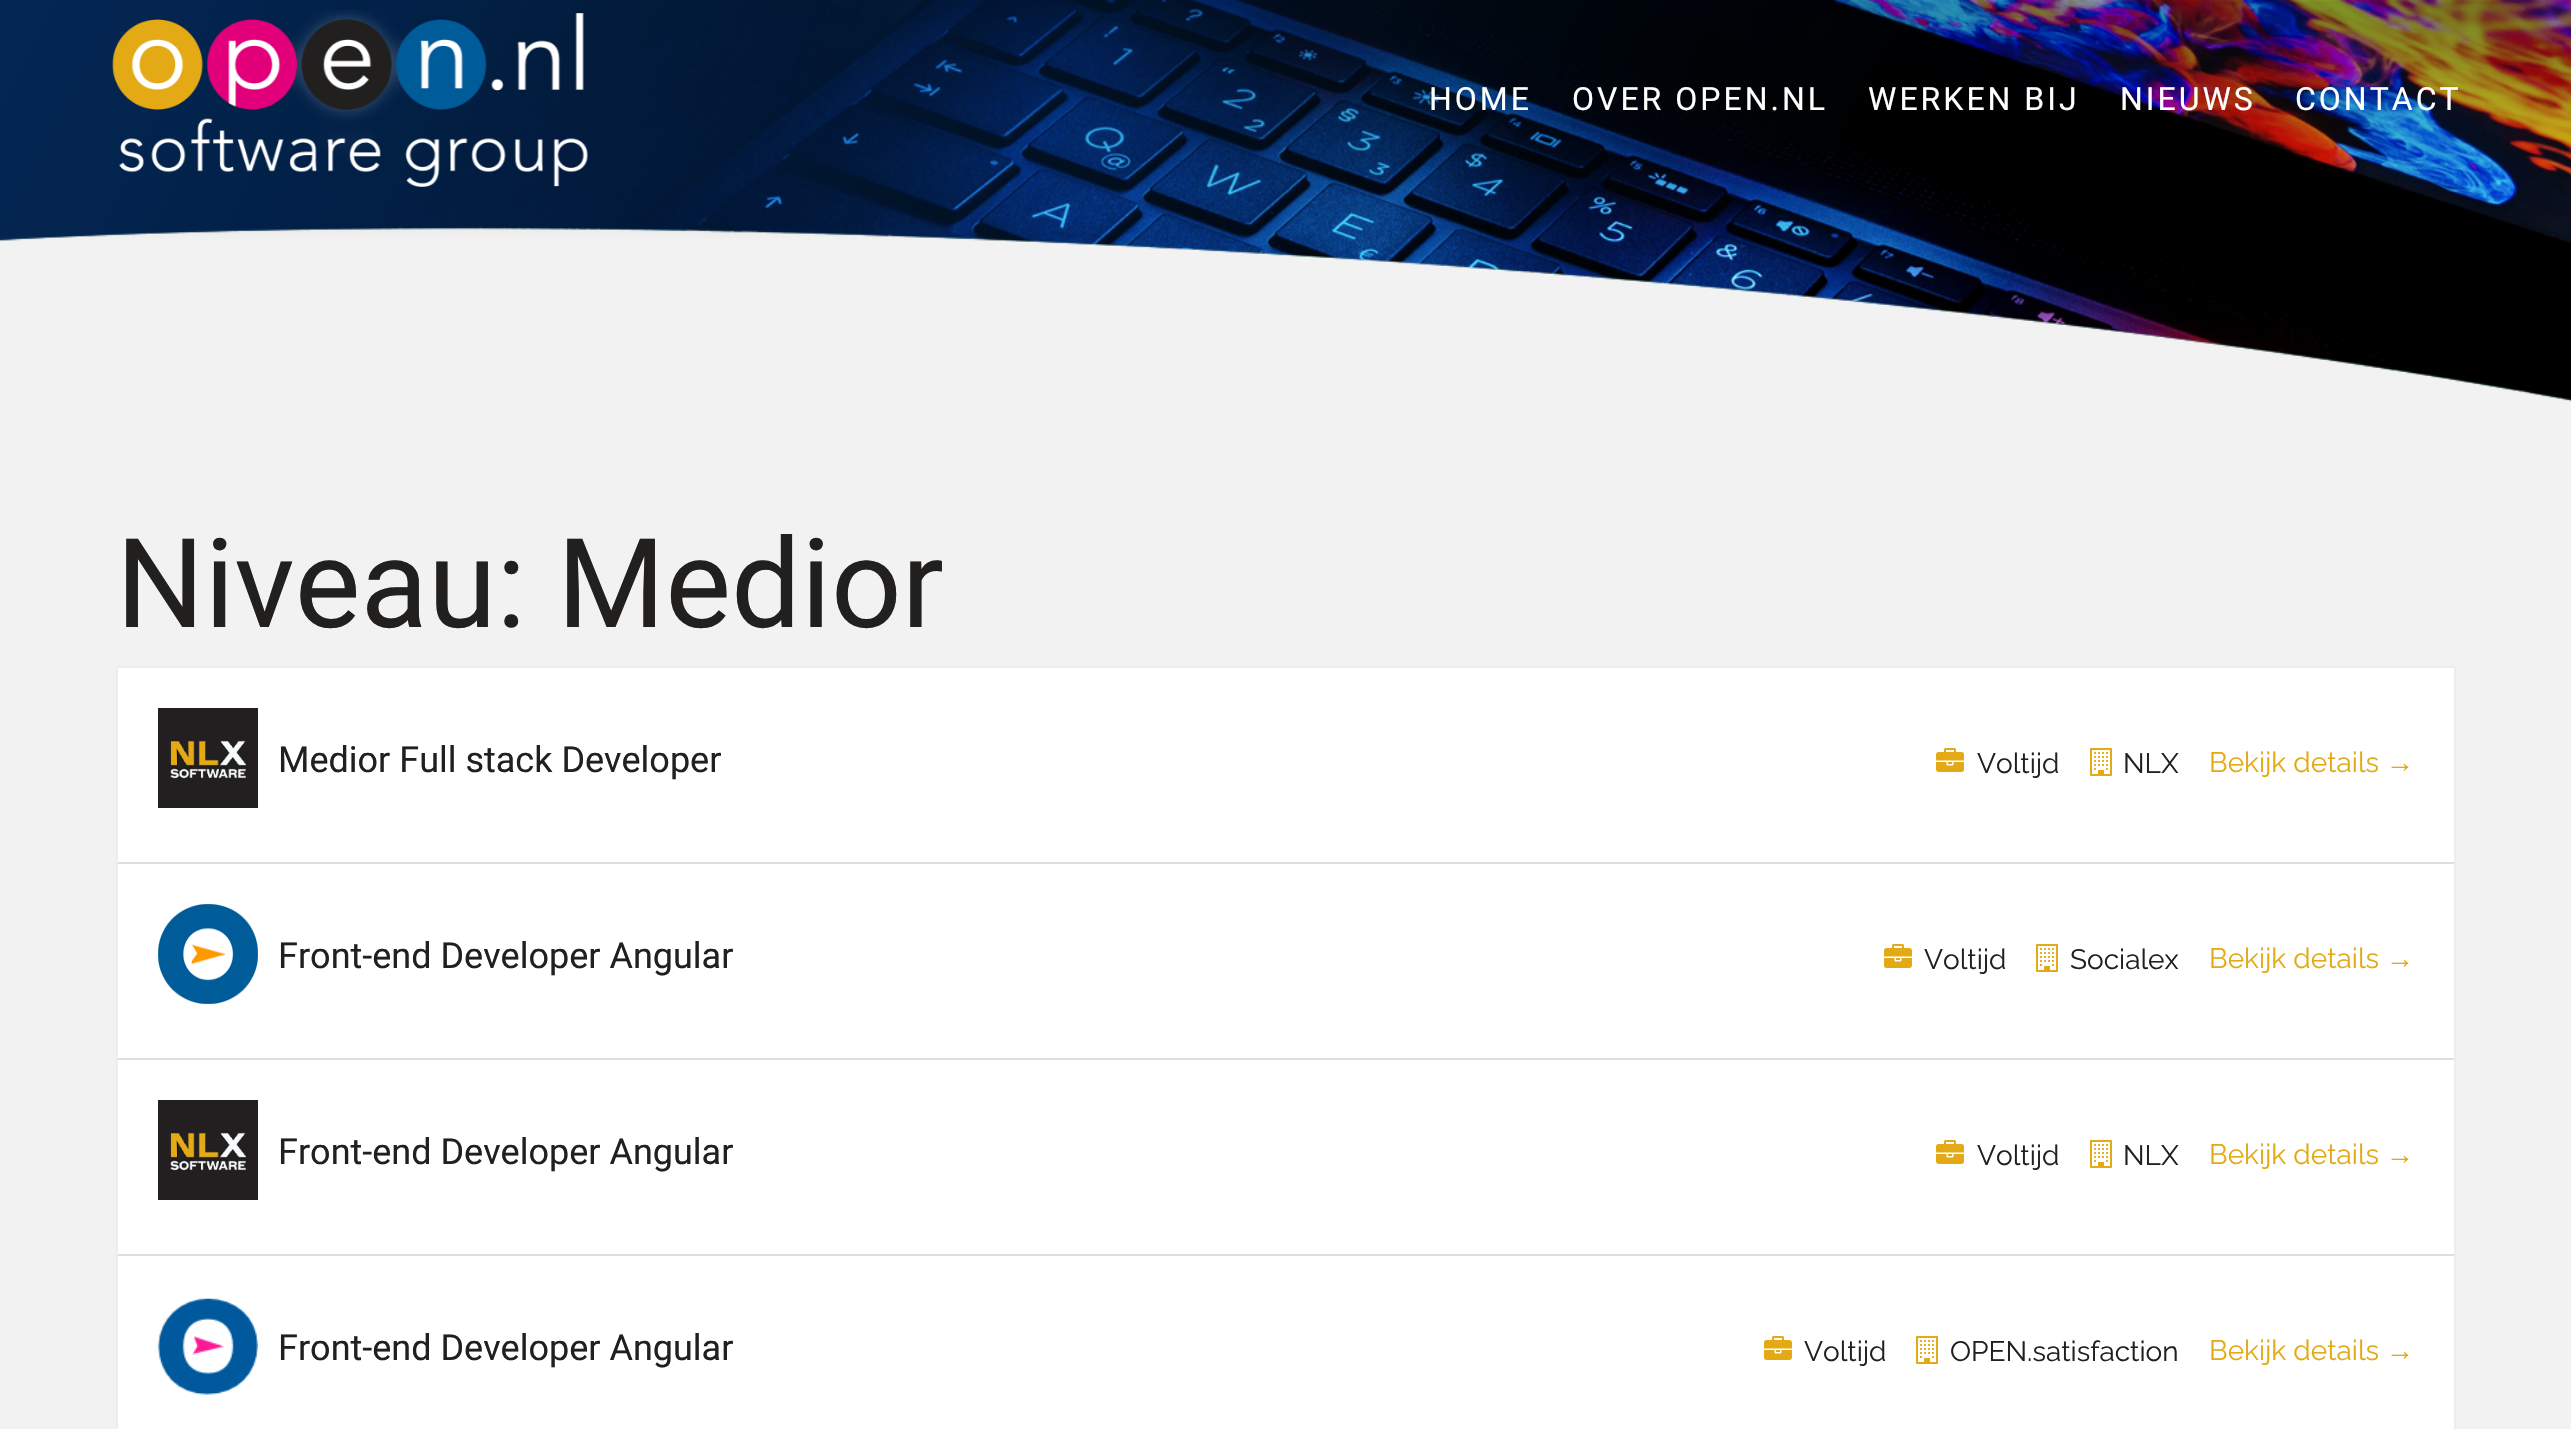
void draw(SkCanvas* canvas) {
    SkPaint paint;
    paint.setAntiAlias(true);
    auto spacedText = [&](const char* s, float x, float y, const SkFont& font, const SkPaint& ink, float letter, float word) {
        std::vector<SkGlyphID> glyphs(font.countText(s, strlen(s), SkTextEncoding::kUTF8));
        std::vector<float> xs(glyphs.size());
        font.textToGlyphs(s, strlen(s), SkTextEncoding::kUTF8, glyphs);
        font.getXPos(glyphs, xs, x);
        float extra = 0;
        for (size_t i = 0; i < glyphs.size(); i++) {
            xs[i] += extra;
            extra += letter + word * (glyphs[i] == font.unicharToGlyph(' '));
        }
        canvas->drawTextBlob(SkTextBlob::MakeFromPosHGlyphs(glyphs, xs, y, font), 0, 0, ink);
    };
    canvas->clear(0xFFF2F2F2);
    canvas->drawImageRect(SkImages::DeferredFromEncodedData(SkData::MakeFromFileName("img2.png")), SkRect::MakeXYWH(0, 0, 2571, 402), SkSamplingOptions());
    canvas->drawImageRect(SkImages::DeferredFromEncodedData(SkData::MakeFromFileName("img1.png")), SkRect::MakeXYWH(112, 10, 476, 177), SkSamplingOptions());
    SkFont font1(fontMgr->matchFamilyStyle("Roboto", SkFontStyle::Normal()), 32);
    font1.setSubpixel(true);
    paint.setColor(0xFFFFFFFF);
    spacedText("HOME", 1429, 110, font1, paint, 3, 0);
    spacedText("OVER OPEN.NL", 1572, 110, font1, paint, 3, 0);
    spacedText("WERKEN BIJ", 1868, 110, font1, paint, 3, 0);
    spacedText("NIEUWS", 2120, 110, font1, paint, 3, 0);
    spacedText("CONTACT", 2295, 110, font1, paint, 3, 0);
    SkFont font2(fontMgr->matchFamilyStyle("Roboto", SkFontStyle::Normal()), 124);
    font2.setSubpixel(true);
    paint.setColor(0xFF22201F);
    canvas->drawString("Niveau: Medior", 116, 627, font2, paint);
    paint.setStyle(SkPaint::kStroke_Style);
    paint.setStrokeWidth(2);
    paint.setColor(0xFFEDEDED);
    canvas->drawRect(SkRect::MakeXYWH(117, 667, 2338, 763), paint);
    paint.setStyle(SkPaint::kFill_Style);
    paint.setColor(0xFFFFFFFF);
    canvas->drawRect(SkRect::MakeXYWH(118, 668, 2336, 194), paint);
    paint.setColor(0xFFDEDEDE);
    canvas->drawRect(SkRect::MakeXYWH(118, 862, 2336, 2), paint);
    canvas->drawImageRect(SkImages::DeferredFromEncodedData(SkData::MakeFromFileName("img3.png")), SkRect::MakeXYWH(158, 708, 100, 100), SkSamplingOptions());
    SkFont font3(fontMgr->matchFamilyStyle("Roboto", SkFontStyle::Normal()), 36);
    font3.setSubpixel(true);
    paint.setColor(0xFF22201F);
    canvas->drawString("Medior Full stack Developer", 278, 772, font3, paint);
    canvas->drawImageRect(SkImages::DeferredFromEncodedData(SkData::MakeFromFileName("img4.png")), SkRect::MakeXYWH(1936, 748, 28, 24), SkSamplingOptions());
    SkFont font4(fontMgr->matchFamilyStyle("Raleway", SkFontStyle::Normal()), 28);
    font4.setSubpixel(true);
    canvas->drawString("Voltijd", 1977, 773, font4, paint);
    canvas->drawImageRect(SkImages::DeferredFromEncodedData(SkData::MakeFromFileName("img5.png")), SkRect::MakeXYWH(2090, 748, 22, 28), SkSamplingOptions());
    canvas->drawString("NLX", 2123, 773, font4, paint);
    paint.setColor(0xFFE3AA16);
    canvas->drawString("Bekijk details", 2209, 772, font4, paint);
    SkFont font5(fontMgr->matchFamilyStyle("Liberation Sans", SkFontStyle::Normal()), 28);
    font5.setSubpixel(true);
    canvas->drawString("→", 2386, 772, font5, paint);
    paint.setColor(0xFFFFFFFF);
    canvas->drawRect(SkRect::MakeXYWH(118, 864, 2336, 194), paint);
    paint.setColor(0xFFDEDEDE);
    canvas->drawRect(SkRect::MakeXYWH(118, 1058, 2336, 2), paint);
    canvas->drawImageRect(SkImages::DeferredFromEncodedData(SkData::MakeFromFileName("img6.png")), SkRect::MakeXYWH(158, 904, 100, 100), SkSamplingOptions());
    paint.setColor(0xFF22201F);
    canvas->drawString("Front-end Developer Angular", 278, 968, font3, paint);
    canvas->drawImageRect(SkImages::DeferredFromEncodedData(SkData::MakeFromFileName("img4.png")), SkRect::MakeXYWH(1884, 944, 28, 24), SkSamplingOptions());
    canvas->drawString("Voltijd", 1924, 969, font4, paint);
    canvas->drawImageRect(SkImages::DeferredFromEncodedData(SkData::MakeFromFileName("img5.png")), SkRect::MakeXYWH(2036, 944, 22, 28), SkSamplingOptions());
    canvas->drawString("Socialex", 2070, 969, font4, paint);
    paint.setColor(0xFFE3AA16);
    canvas->drawString("Bekijk details", 2209, 968, font4, paint);
    canvas->drawString("→", 2386, 968, font5, paint);
    paint.setColor(0xFFFFFFFF);
    canvas->drawRect(SkRect::MakeXYWH(118, 1060, 2336, 194), paint);
    paint.setColor(0xFFDEDEDE);
    canvas->drawRect(SkRect::MakeXYWH(118, 1254, 2336, 2), paint);
    canvas->drawImageRect(SkImages::DeferredFromEncodedData(SkData::MakeFromFileName("img3.png")), SkRect::MakeXYWH(158, 1100, 100, 100), SkSamplingOptions());
    paint.setColor(0xFF22201F);
    canvas->drawString("Front-end Developer Angular", 278, 1164, font3, paint);
    canvas->drawImageRect(SkImages::DeferredFromEncodedData(SkData::MakeFromFileName("img4.png")), SkRect::MakeXYWH(1936, 1140, 28, 24), SkSamplingOptions());
    canvas->drawString("Voltijd", 1977, 1165, font4, paint);
    canvas->drawImageRect(SkImages::DeferredFromEncodedData(SkData::MakeFromFileName("img5.png")), SkRect::MakeXYWH(2090, 1140, 22, 28), SkSamplingOptions());
    canvas->drawString("NLX", 2123, 1165, font4, paint);
    paint.setColor(0xFFE3AA16);
    canvas->drawString("Bekijk details", 2209, 1164, font4, paint);
    canvas->drawString("→", 2386, 1164, font5, paint);
    paint.setColor(0xFFFFFFFF);
    canvas->drawRect(SkRect::MakeXYWH(118, 1256, 2336, 173), paint);
    canvas->drawImageRect(SkImages::DeferredFromEncodedData(SkData::MakeFromFileName("img7.png")), SkRect::MakeXYWH(158, 1298, 100, 97), SkSamplingOptions());
    paint.setColor(0xFF22201F);
    canvas->drawString("Front-end Developer Angular", 278, 1360, font3, paint);
    canvas->drawImageRect(SkImages::DeferredFromEncodedData(SkData::MakeFromFileName("img4.png")), SkRect::MakeXYWH(1764, 1336, 28, 24), SkSamplingOptions());
    canvas->drawString("Voltijd", 1804, 1361, font4, paint);
    canvas->drawImageRect(SkImages::DeferredFromEncodedData(SkData::MakeFromFileName("img5.png")), SkRect::MakeXYWH(1916, 1336, 22, 28), SkSamplingOptions());
    canvas->drawString("OPEN.satisfaction", 1950, 1361, font4, paint);
    paint.setColor(0xFFE3AA16);
    canvas->drawString("Bekijk details", 2209, 1360, font4, paint);
    canvas->drawString("→", 2386, 1360, font5, paint);
}
